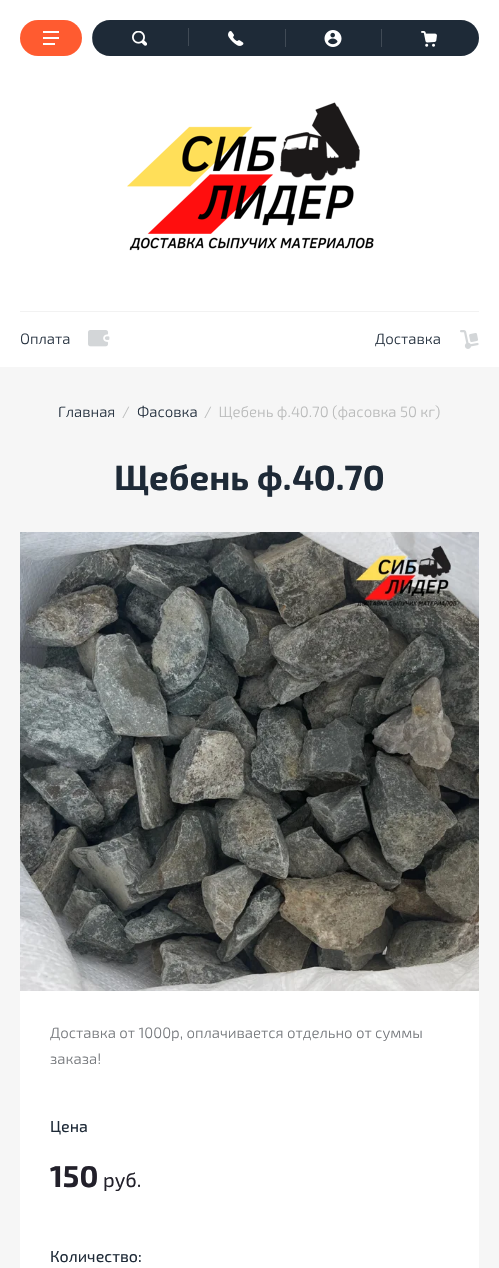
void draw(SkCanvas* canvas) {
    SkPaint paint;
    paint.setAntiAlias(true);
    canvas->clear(0xFFFFFFFF);
    paint.setColor(0xFFFF5B30);
    canvas->drawRoundRect(SkRect::MakeXYWH(20, 20, 62, 36), 18, 18, paint);
    canvas->drawImageRect(SkImages::DeferredFromEncodedData(SkData::MakeFromFileName("img1.png")), SkRect::MakeXYWH(43, 31, 16, 14), SkSamplingOptions());
    paint.setColor(0xFF1E2A37);
    canvas->drawPath(SkPathBuilder().moveTo(110, 20).lineTo(189, 20).lineTo(189, 56).lineTo(110, 56).cubicTo(100, 56, 92, 48, 92, 38).cubicTo(92, 28, 100, 20, 110, 20).close().detach(), paint);
    canvas->drawImageRect(SkImages::DeferredFromEncodedData(SkData::MakeFromFileName("img2.png")), SkRect::MakeXYWH(132, 31, 15, 15), SkSamplingOptions());
    paint.setColor(0x26FFFFFF);
    canvas->drawRect(SkRect::MakeXYWH(92, 28, 1, 18), paint);
    paint.setColor(0xFF404A55);
    canvas->drawRect(SkRect::MakeXYWH(188, 28, 1, 18), paint);
    paint.setColor(0xFF1E2A37);
    canvas->drawRect(SkRect::MakeXYWH(189, 20, 193, 36), paint);
    canvas->drawImageRect(SkImages::DeferredFromEncodedData(SkData::MakeFromFileName("img3.png")), SkRect::MakeXYWH(228, 31, 16, 15), SkSamplingOptions());
    paint.setColor(0xFF404A55);
    canvas->drawRect(SkRect::MakeXYWH(285, 29, 1, 18), paint);
    paint.setColor(0xFF1E2A37);
    canvas->drawPath(SkPathBuilder().moveTo(382, 20).lineTo(461, 20).cubicTo(471, 20, 479, 28, 479, 38).cubicTo(479, 48, 471, 56, 461, 56).lineTo(382, 56).close().detach(), paint);
    canvas->drawImageRect(SkImages::DeferredFromEncodedData(SkData::MakeFromFileName("img4.png")), SkRect::MakeXYWH(421, 31, 16, 16), SkSamplingOptions());
    canvas->drawImageRect(SkImages::DeferredFromEncodedData(SkData::MakeFromFileName("img5.png")), SkRect::MakeXYWH(324, 30, 18, 17), SkSamplingOptions());
    paint.setColor(0xFF404A55);
    canvas->drawRect(SkRect::MakeXYWH(381, 29, 1, 18), paint);
    canvas->drawImageRect(SkImages::DeferredFromEncodedData(SkData::MakeFromFileName("img6.png")), SkRect::MakeXYWH(127, 102, 247, 149), SkSamplingOptions());
    paint.setColor(0xFFF2F2F2);
    canvas->drawRect(SkRect::MakeXYWH(20, 311, 459, 1), paint);
    canvas->drawImageRect(SkImages::DeferredFromEncodedData(SkData::MakeFromFileName("img7.png")), SkRect::MakeXYWH(88, 330, 22, 17), SkSamplingOptions());
    SkFont font1(fontMgr->matchFamilyStyle("Exo 2", SkFontStyle(300, SkFontStyle::kNormal_Width, SkFontStyle::kUpright_Slant)), 15);
    font1.setSubpixel(true);
    paint.setColor(0xFF24303E);
    canvas->drawString("Оплата", 20, 344, font1, paint);
    canvas->drawImageRect(SkImages::DeferredFromEncodedData(SkData::MakeFromFileName("img8.png")), SkRect::MakeXYWH(460, 330, 19, 19), SkSamplingOptions());
    canvas->drawString("Доставка", 375, 344, font1, paint);
    paint.setColor(0xFFF6F6F6);
    canvas->drawRect(SkRect::MakeXYWH(0, 367, 499, 901), paint);
    paint.setColor(0xFF24303E);
    canvas->drawString("Главная", 58, 417, font1, paint);
    paint.setColor(0xFFB9BABA);
    canvas->drawString("/", 122, 417, font1, paint);
    paint.setColor(0xFF24303E);
    canvas->drawString("Фасовка", 137, 417, font1, paint);
    paint.setColor(0xFFB9BABA);
    canvas->drawString("/  Щебень ф.40.70 (фасовка 50 кг)", 204, 417, font1, paint);
    SkFont font2(fontMgr->matchFamilyStyle("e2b", SkFontStyle::Bold()), 35);
    font2.setSubpixel(true);
    paint.setColor(0xFF1E2A37);
    canvas->drawString("Щебень ф.40.70", 114, 490, font2, paint);
    paint.setColor(0xFFFFFFFF);
    canvas->drawRect(SkRect::MakeXYWH(20, 991, 459, 277), paint);
    canvas->drawImageRect(SkImages::DeferredFromEncodedData(SkData::MakeFromFileName("img9.png")), SkRect::MakeXYWH(20, 532, 459, 459), SkSamplingOptions());
    paint.setColor(0xFF74777B);
    canvas->drawString("Доставка от 1000р, оплачивается отдельно от суммы", 50, 1038, font1, paint);
    canvas->drawString("заказа!", 50, 1064, font1, paint);
    SkFont font3(fontMgr->matchFamilyStyle("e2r", SkFontStyle::Normal()), 16);
    font3.setSubpixel(true);
    paint.setColor(0xFF1E2A37);
    canvas->drawString("Цена", 50, 1132, font3, paint);
    SkFont font4(fontMgr->matchFamilyStyle("e2b", SkFontStyle::Bold()), 30);
    font4.setSubpixel(true);
    paint.setColor(0xFF22202A);
    canvas->drawString("150", 50, 1187, font4, paint);
    SkFont font5(fontMgr->matchFamilyStyle("e2r", SkFontStyle::Normal()), 20);
    font5.setSubpixel(true);
    canvas->drawString("руб.", 103, 1187, font5, paint);
    paint.setColor(0xFF1E2A37);
    canvas->drawString("Количество:", 50, 1262, font3, paint);
}
